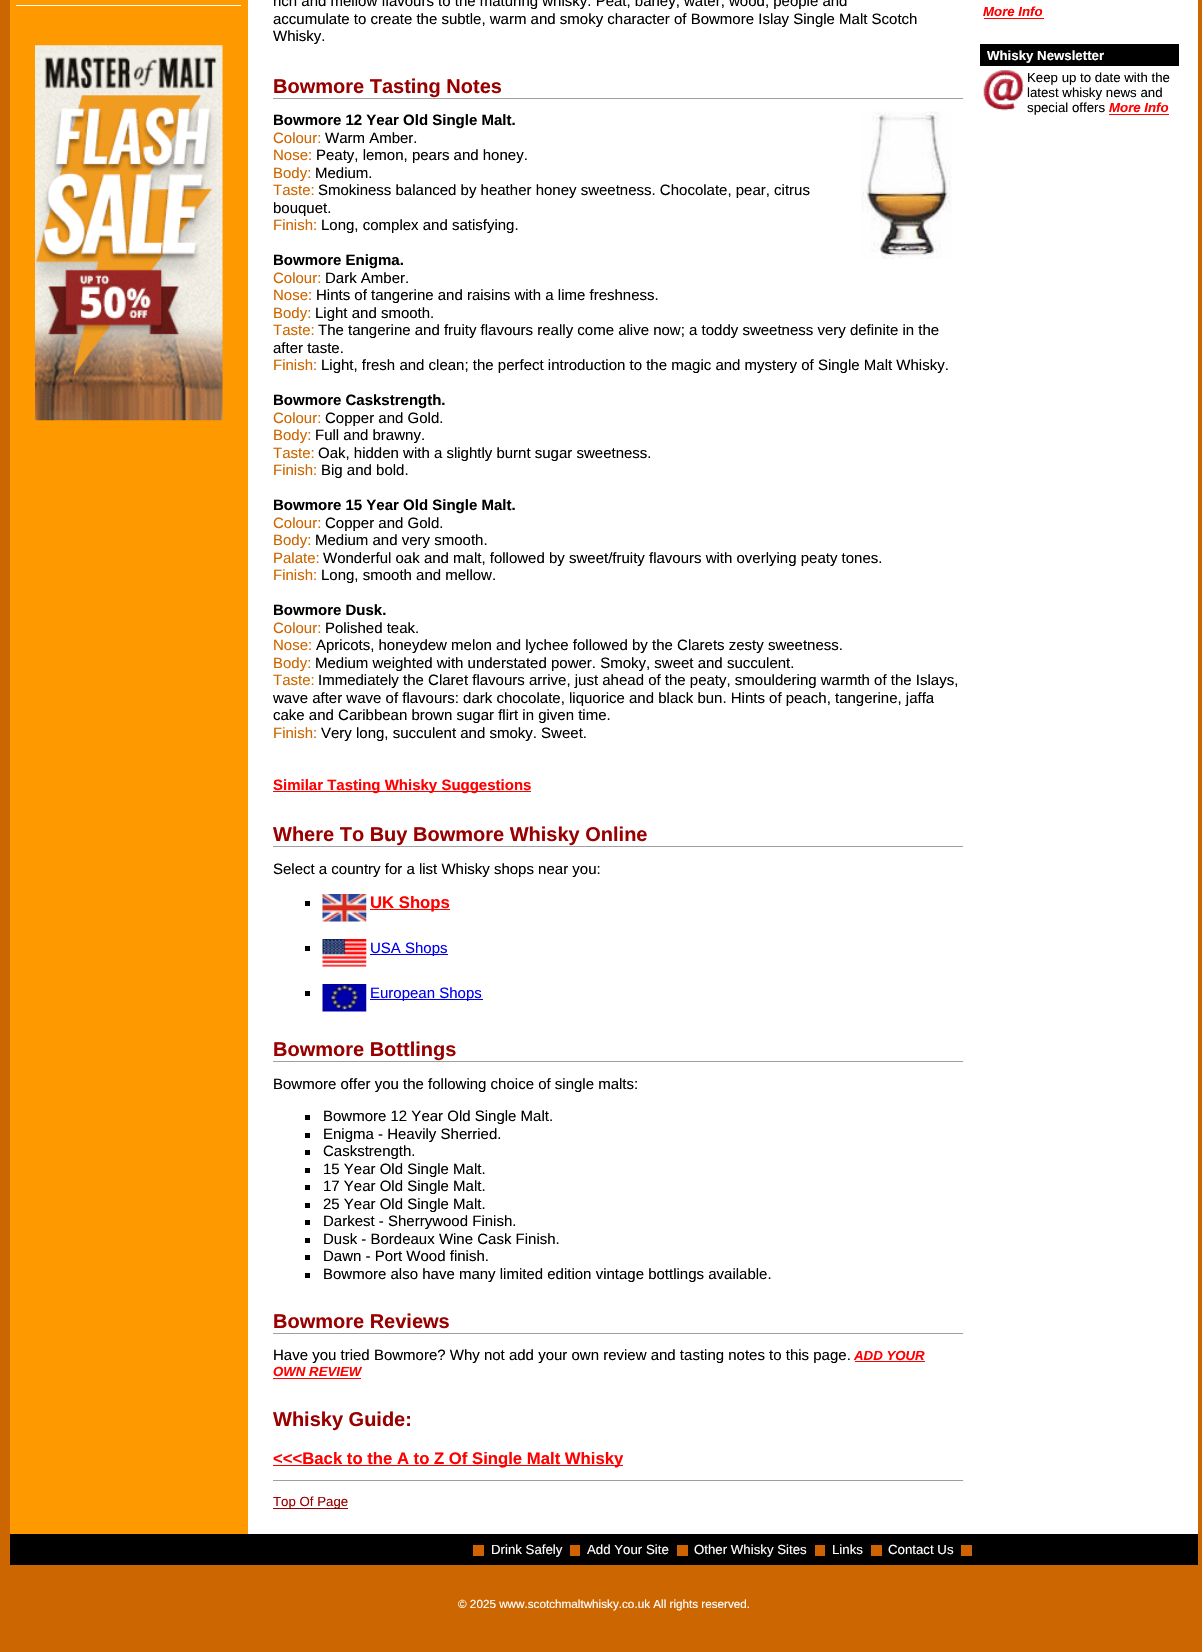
void draw(SkCanvas* canvas) {
    SkPaint paint;
    paint.setAntiAlias(true);
    canvas->clear(0xFFCC6600);
    paint.setColor(0xFFFF9900);
    canvas->drawRect(SkRect::MakeXYWH(10, 0, 238, 1534), paint);
    paint.setColor(0xFFFFFFFF);
    canvas->drawRect(SkRect::MakeXYWH(16, 5, 225, 1), paint);
    canvas->drawImageRect(SkImages::DeferredFromEncodedData(SkData::MakeFromFileName("img1.png")), SkRect::MakeXYWH(35, 45, 188, 376), SkSamplingOptions());
    canvas->drawRect(SkRect::MakeXYWH(248, 0, 950, 1534), paint);
    SkFont font1(fontMgr->matchFamilyStyle("Liberation Sans", SkFontStyle::Normal()), 15);
    font1.setSubpixel(true);
    paint.setColor(0xFF000000);
    canvas->drawString("rich and mellow flavours to the maturing whisky. Peat, barley, water, wood, people and", 273, 6, font1, paint);
    canvas->drawString("accumulate to create the subtle, warm and smoky character of Bowmore Islay Single Malt Scotch", 273, 24, font1, paint);
    canvas->drawString("Whisky.", 273, 41, font1, paint);
    SkFont font2(fontMgr->matchFamilyStyle("Liberation Sans", SkFontStyle::Bold()), 20);
    font2.setSubpixel(true);
    paint.setColor(0xFF990000);
    canvas->drawString("Bowmore Tasting Notes", 273, 93, font2, paint);
    paint.setColor(0xFF9F9F9F);
    canvas->drawRect(SkRect::MakeXYWH(273, 98, 691, 1), paint);
    paint.setColor(0xFFEEEEEE);
    canvas->drawRect(SkRect::MakeXYWH(963, 98, 1, 1), paint);
    SkFont font3(fontMgr->matchFamilyStyle("Liberation Sans", SkFontStyle::Bold()), 15);
    font3.setSubpixel(true);
    paint.setColor(0xFF000000);
    canvas->drawString("Bowmore 12 Year Old Single Malt.", 273, 125, font3, paint);
    canvas->drawImageRect(SkImages::DeferredFromEncodedData(SkData::MakeFromFileName("img2.png")), SkRect::MakeXYWH(861, 111, 91, 148), SkSamplingOptions());
    paint.setColor(0xFFCC6600);
    canvas->drawString("Colour:", 273, 143, font1, paint);
    paint.setColor(0xFF000000);
    canvas->drawString("Warm Amber.", 325, 143, font1, paint);
    paint.setColor(0xFFCC6600);
    canvas->drawString("Nose:", 273, 160, font1, paint);
    paint.setColor(0xFF000000);
    canvas->drawString("Peaty, lemon, pears and honey.", 316, 160, font1, paint);
    paint.setColor(0xFFCC6600);
    canvas->drawString("Body:", 273, 178, font1, paint);
    paint.setColor(0xFF000000);
    canvas->drawString("Medium.", 315, 178, font1, paint);
    paint.setColor(0xFFCC6600);
    canvas->drawString("Taste:", 273, 195, font1, paint);
    paint.setColor(0xFF000000);
    canvas->drawString("Smokiness balanced by heather honey sweetness. Chocolate, pear, citrus", 318, 195, font1, paint);
    canvas->drawString("bouquet.", 273, 213, font1, paint);
    paint.setColor(0xFFCC6600);
    canvas->drawString("Finish:", 273, 230, font1, paint);
    paint.setColor(0xFF000000);
    canvas->drawString("Long, complex and satisfying.", 321, 230, font1, paint);
    canvas->drawString("Bowmore Enigma.", 273, 265, font3, paint);
    paint.setColor(0xFFCC6600);
    canvas->drawString("Colour:", 273, 283, font1, paint);
    paint.setColor(0xFF000000);
    canvas->drawString("Dark Amber.", 325, 283, font1, paint);
    paint.setColor(0xFFCC6600);
    canvas->drawString("Nose:", 273, 300, font1, paint);
    paint.setColor(0xFF000000);
    canvas->drawString("Hints of tangerine and raisins with a lime freshness.", 316, 300, font1, paint);
    paint.setColor(0xFFCC6600);
    canvas->drawString("Body:", 273, 318, font1, paint);
    paint.setColor(0xFF000000);
    canvas->drawString("Light and smooth.", 315, 318, font1, paint);
    paint.setColor(0xFFCC6600);
    canvas->drawString("Taste:", 273, 335, font1, paint);
    paint.setColor(0xFF000000);
    canvas->drawString("The tangerine and fruity flavours really come alive now; a toddy sweetness very definite in the", 318, 335, font1, paint);
    canvas->drawString("after taste.", 273, 353, font1, paint);
    paint.setColor(0xFFCC6600);
    canvas->drawString("Finish:", 273, 370, font1, paint);
    paint.setColor(0xFF000000);
    canvas->drawString("Light, fresh and clean; the perfect introduction to the magic and mystery of Single Malt Whisky.", 321, 370, font1, paint);
    canvas->drawString("Bowmore Caskstrength.", 273, 405, font3, paint);
    paint.setColor(0xFFCC6600);
    canvas->drawString("Colour:", 273, 423, font1, paint);
    paint.setColor(0xFF000000);
    canvas->drawString("Copper and Gold.", 325, 423, font1, paint);
    paint.setColor(0xFFCC6600);
    canvas->drawString("Body:", 273, 440, font1, paint);
    paint.setColor(0xFF000000);
    canvas->drawString("Full and brawny.", 315, 440, font1, paint);
    paint.setColor(0xFFCC6600);
    canvas->drawString("Taste:", 273, 458, font1, paint);
    paint.setColor(0xFF000000);
    canvas->drawString("Oak, hidden with a slightly burnt sugar sweetness.", 318, 458, font1, paint);
    paint.setColor(0xFFCC6600);
    canvas->drawString("Finish:", 273, 475, font1, paint);
    paint.setColor(0xFF000000);
    canvas->drawString("Big and bold.", 321, 475, font1, paint);
    canvas->drawString("Bowmore 15 Year Old Single Malt.", 273, 510, font3, paint);
    paint.setColor(0xFFCC6600);
    canvas->drawString("Colour:", 273, 528, font1, paint);
    paint.setColor(0xFF000000);
    canvas->drawString("Copper and Gold.", 325, 528, font1, paint);
    paint.setColor(0xFFCC6600);
    canvas->drawString("Body:", 273, 545, font1, paint);
    paint.setColor(0xFF000000);
    canvas->drawString("Medium and very smooth.", 315, 545, font1, paint);
    paint.setColor(0xFFCC6600);
    canvas->drawString("Palate:", 273, 563, font1, paint);
    paint.setColor(0xFF000000);
    canvas->drawString("Wonderful oak and malt, followed by sweet/fruity flavours with overlying peaty tones.", 323, 563, font1, paint);
    paint.setColor(0xFFCC6600);
    canvas->drawString("Finish:", 273, 580, font1, paint);
    paint.setColor(0xFF000000);
    canvas->drawString("Long, smooth and mellow.", 321, 580, font1, paint);
    canvas->drawString("Bowmore Dusk.", 273, 615, font3, paint);
    paint.setColor(0xFFCC6600);
    canvas->drawString("Colour:", 273, 633, font1, paint);
    paint.setColor(0xFF000000);
    canvas->drawString("Polished teak.", 325, 633, font1, paint);
    paint.setColor(0xFFCC6600);
    canvas->drawString("Nose:", 273, 650, font1, paint);
    paint.setColor(0xFF000000);
    canvas->drawString("Apricots, honeydew melon and lychee followed by the Clarets zesty sweetness.", 316, 650, font1, paint);
    paint.setColor(0xFFCC6600);
    canvas->drawString("Body:", 273, 668, font1, paint);
    paint.setColor(0xFF000000);
    canvas->drawString("Medium weighted with understated power. Smoky, sweet and succulent.", 315, 668, font1, paint);
    paint.setColor(0xFFCC6600);
    canvas->drawString("Taste:", 273, 685, font1, paint);
    paint.setColor(0xFF000000);
    canvas->drawString("Immediately the Claret flavours arrive, just ahead of the peaty, smouldering warmth of the Islays,", 318, 685, font1, paint);
    canvas->drawString("wave after wave of flavours: dark chocolate, liquorice and black bun. Hints of peach, tangerine, jaffa", 273, 703, font1, paint);
    canvas->drawString("cake and Caribbean brown sugar flirt in given time.", 273, 720, font1, paint);
    paint.setColor(0xFFCC6600);
    canvas->drawString("Finish:", 273, 738, font1, paint);
    paint.setColor(0xFF000000);
    canvas->drawString("Very long, succulent and smoky. Sweet.", 321, 738, font1, paint);
    paint.setColor(0xFFFF0000);
    canvas->drawRect(SkRect::MakeXYWH(273, 791, 258, 1), paint);
    canvas->drawString("Similar Tasting Whisky Suggestions", 273, 790, font3, paint);
    paint.setColor(0xFF990000);
    canvas->drawString("Where To Buy Bowmore Whisky Online", 273, 841, font2, paint);
    paint.setColor(0xFF9F9F9F);
    canvas->drawRect(SkRect::MakeXYWH(273, 846, 691, 1), paint);
    paint.setColor(0xFFEEEEEE);
    canvas->drawRect(SkRect::MakeXYWH(963, 846, 1, 1), paint);
    paint.setColor(0xFF000000);
    canvas->drawString("Select a country for a list Whisky shops near you:", 273, 874, font1, paint);
    canvas->drawRect(SkRect::MakeXYWH(305, 901, 5, 5), paint);
    canvas->drawImageRect(SkImages::DeferredFromEncodedData(SkData::MakeFromFileName("img3.png")), SkRect::MakeXYWH(322, 894, 45, 28), SkSamplingOptions());
    paint.setColor(0xFFFF0000);
    canvas->drawRect(SkRect::MakeXYWH(370, 909, 80, 1), paint);
    SkFont font4(fontMgr->matchFamilyStyle("Liberation Sans", SkFontStyle::Bold()), 16.7f);
    font4.setSubpixel(true);
    canvas->drawString("UK Shops", 370, 908, font4, paint);
    paint.setColor(0xFF000000);
    canvas->drawRect(SkRect::MakeXYWH(305, 946, 5, 5), paint);
    canvas->drawImageRect(SkImages::DeferredFromEncodedData(SkData::MakeFromFileName("img4.png")), SkRect::MakeXYWH(322, 939, 45, 28), SkSamplingOptions());
    paint.setColor(0xFF0000EE);
    canvas->drawRect(SkRect::MakeXYWH(370, 954, 78, 1), paint);
    canvas->drawString("USA Shops", 370, 953, font1, paint);
    paint.setColor(0xFF000000);
    canvas->drawRect(SkRect::MakeXYWH(305, 991, 5, 5), paint);
    canvas->drawImageRect(SkImages::DeferredFromEncodedData(SkData::MakeFromFileName("img5.png")), SkRect::MakeXYWH(322, 984, 45, 28), SkSamplingOptions());
    paint.setColor(0xFF0000EE);
    canvas->drawRect(SkRect::MakeXYWH(370, 999, 113, 1), paint);
    canvas->drawString("European Shops", 370, 998, font1, paint);
    paint.setColor(0xFF990000);
    canvas->drawString("Bowmore Bottlings", 273, 1056, font2, paint);
    paint.setColor(0xFF9F9F9F);
    canvas->drawRect(SkRect::MakeXYWH(273, 1061, 691, 1), paint);
    paint.setColor(0xFFEEEEEE);
    canvas->drawRect(SkRect::MakeXYWH(963, 1061, 1, 1), paint);
    paint.setColor(0xFF000000);
    canvas->drawString("Bowmore offer you the following choice of single malts:", 273, 1089, font1, paint);
    canvas->drawRect(SkRect::MakeXYWH(305, 1115, 5, 5), paint);
    canvas->drawString("Bowmore 12 Year Old Single Malt.", 323, 1121, font1, paint);
    canvas->drawRect(SkRect::MakeXYWH(305, 1133, 5, 5), paint);
    canvas->drawString("Enigma - Heavily Sherried.", 323, 1139, font1, paint);
    canvas->drawRect(SkRect::MakeXYWH(305, 1150, 5, 5), paint);
    canvas->drawString("Caskstrength.", 323, 1156, font1, paint);
    canvas->drawRect(SkRect::MakeXYWH(305, 1168, 5, 5), paint);
    canvas->drawString("15 Year Old Single Malt.", 323, 1174, font1, paint);
    canvas->drawRect(SkRect::MakeXYWH(305, 1185, 5, 5), paint);
    canvas->drawString("17 Year Old Single Malt.", 323, 1191, font1, paint);
    canvas->drawRect(SkRect::MakeXYWH(305, 1203, 5, 5), paint);
    canvas->drawString("25 Year Old Single Malt.", 323, 1209, font1, paint);
    canvas->drawRect(SkRect::MakeXYWH(305, 1220, 5, 5), paint);
    canvas->drawString("Darkest - Sherrywood Finish.", 323, 1226, font1, paint);
    canvas->drawRect(SkRect::MakeXYWH(305, 1238, 5, 5), paint);
    canvas->drawString("Dusk - Bordeaux Wine Cask Finish.", 323, 1244, font1, paint);
    canvas->drawRect(SkRect::MakeXYWH(305, 1255, 5, 5), paint);
    canvas->drawString("Dawn - Port Wood finish.", 323, 1261, font1, paint);
    canvas->drawRect(SkRect::MakeXYWH(305, 1273, 5, 5), paint);
    canvas->drawString("Bowmore also have many limited edition vintage bottlings available.", 323, 1279, font1, paint);
    paint.setColor(0xFF990000);
    canvas->drawString("Bowmore Reviews", 273, 1328, font2, paint);
    paint.setColor(0xFF9F9F9F);
    canvas->drawRect(SkRect::MakeXYWH(273, 1333, 691, 1), paint);
    paint.setColor(0xFFEEEEEE);
    canvas->drawRect(SkRect::MakeXYWH(963, 1333, 1, 1), paint);
    paint.setColor(0xFF000000);
    canvas->drawString("Have you tried Bowmore? Why not add your own review and tasting notes to this page.", 273, 1360, font1, paint);
    SkFont font5(fontMgr->matchFamilyStyle("Liberation Sans", SkFontStyle::BoldItalic()), 13.25f);
    font5.setSubpixel(true);
    paint.setColor(0xFFFF0000);
    canvas->drawString("ADD YOUR", 854, 1360, font5, paint);
    canvas->drawRect(SkRect::MakeXYWH(855, 1361, 70, 1), paint);
    canvas->drawString("OWN REVIEW", 273, 1376, font5, paint);
    canvas->drawRect(SkRect::MakeXYWH(273, 1378, 88, 1), paint);
    paint.setColor(0xFF990000);
    canvas->drawString("Whisky Guide:", 273, 1426, font2, paint);
    paint.setColor(0xFFFF0000);
    canvas->drawRect(SkRect::MakeXYWH(273, 1465, 350, 1), paint);
    canvas->drawString("<<<Back to the A to Z Of Single Malt Whisky", 273, 1464, font4, paint);
    paint.setColor(0xFF9F9F9F);
    canvas->drawRect(SkRect::MakeXYWH(273, 1480, 691, 1), paint);
    paint.setColor(0xFFEEEEEE);
    canvas->drawRect(SkRect::MakeXYWH(963, 1480, 1, 1), paint);
    paint.setColor(0xFF990000);
    canvas->drawRect(SkRect::MakeXYWH(273, 1508, 75, 1), paint);
    SkFont font6(fontMgr->matchFamilyStyle("Liberation Sans", SkFontStyle::Normal()), 13.25f);
    font6.setSubpixel(true);
    canvas->drawString("Top Of Page", 273, 1506, font6, paint);
    paint.setColor(0xFFFF0000);
    canvas->drawString("More Info", 983, 16, font5, paint);
    canvas->drawRect(SkRect::MakeXYWH(984, 18, 60, 1), paint);
    paint.setColor(0xFF000000);
    canvas->drawRect(SkRect::MakeXYWH(980, 44, 199, 22), paint);
    SkFont font7(fontMgr->matchFamilyStyle("Liberation Sans", SkFontStyle::Bold()), 13.25f);
    font7.setSubpixel(true);
    paint.setColor(0xFFFFFFFF);
    canvas->drawString("Whisky Newsletter", 987, 60, font7, paint);
    canvas->drawImageRect(SkImages::DeferredFromEncodedData(SkData::MakeFromFileName("img6.png")), SkRect::MakeXYWH(983, 70, 41, 41), SkSamplingOptions());
    paint.setColor(0xFF000000);
    canvas->drawString("Keep up to date with the", 1027, 82, font6, paint);
    canvas->drawString("latest whisky news and", 1027, 97, font6, paint);
    canvas->drawString("special offers", 1027, 112, font6, paint);
    paint.setColor(0xFFFF0000);
    canvas->drawString("More Info", 1109, 112, font5, paint);
    canvas->drawRect(SkRect::MakeXYWH(1109, 114, 60, 1), paint);
    paint.setColor(0xFF000000);
    canvas->drawRect(SkRect::MakeXYWH(10, 1534, 1188, 31), paint);
    paint.setColor(0xFFCE6300);
    canvas->drawRect(SkRect::MakeXYWH(473, 1545, 11, 11), paint);
    paint.setColor(0xFFFFFFFF);
    canvas->drawString("Drink Safely", 491, 1554, font6, paint);
    paint.setColor(0xFFCE6300);
    canvas->drawRect(SkRect::MakeXYWH(570, 1545, 10, 11), paint);
    paint.setColor(0xFFFFFFFF);
    canvas->drawString("Add Your Site", 587, 1554, font6, paint);
    paint.setColor(0xFFCE6300);
    canvas->drawRect(SkRect::MakeXYWH(677, 1545, 11, 11), paint);
    paint.setColor(0xFFFFFFFF);
    canvas->drawString("Other Whisky Sites", 694, 1554, font6, paint);
    paint.setColor(0xFFCE6300);
    canvas->drawRect(SkRect::MakeXYWH(815, 1545, 10, 11), paint);
    paint.setColor(0xFFFFFFFF);
    canvas->drawString("Links", 832, 1554, font6, paint);
    paint.setColor(0xFFCE6300);
    canvas->drawRect(SkRect::MakeXYWH(871, 1545, 11, 11), paint);
    paint.setColor(0xFFFFFFFF);
    canvas->drawString("Contact Us", 888, 1554, font6, paint);
    paint.setColor(0xFFCE6300);
    canvas->drawRect(SkRect::MakeXYWH(961, 1545, 11, 11), paint);
    SkFont font8(fontMgr->matchFamilyStyle("Liberation Sans", SkFontStyle::Normal()), 11.7f);
    font8.setSubpixel(true);
    paint.setColor(0xFFFFFFFF);
    canvas->drawString("© 2025 www.scotchmaltwhisky.co.uk All rights reserved.", 458, 1608, font8, paint);
}
